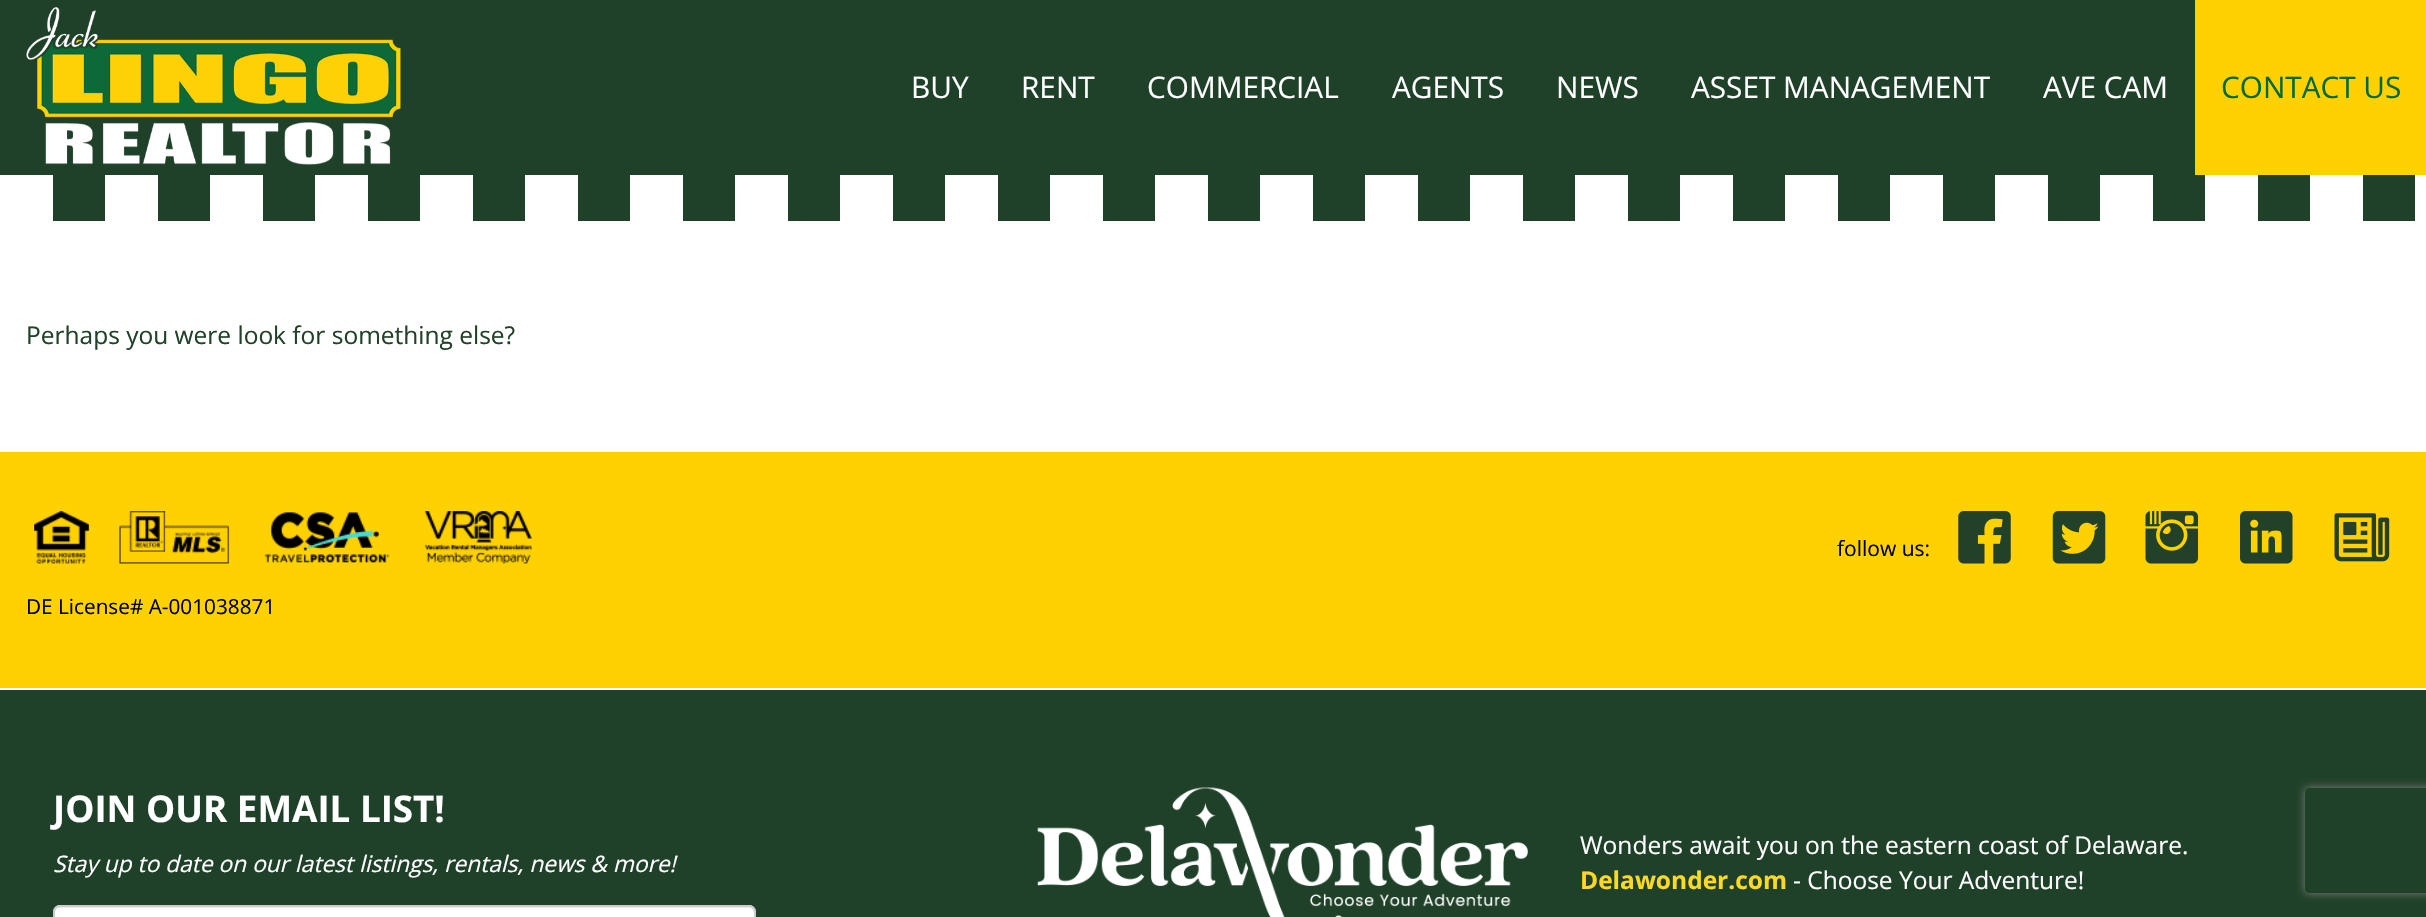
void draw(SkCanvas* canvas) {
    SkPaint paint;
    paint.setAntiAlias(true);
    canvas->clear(0xFF204129);
    canvas->drawImageRect(SkImages::DeferredFromEncodedData(SkData::MakeFromFileName("img1.png")), SkRect::MakeXYWH(26, 7, 375, 158), SkSamplingOptions());
    SkFont font1(fontMgr->matchFamilyStyle("Open Sans", SkFontStyle::Normal()), 29.75f);
    font1.setSubpixel(true);
    paint.setColor(0xFFFFFFFF);
    canvas->drawString("BUY", 911, 98, font1, paint);
    canvas->drawString("RENT", 1021, 98, font1, paint);
    canvas->drawString("COMMERCIAL", 1147, 98, font1, paint);
    canvas->drawString("AGENTS", 1392, 98, font1, paint);
    canvas->drawString("NEWS", 1556, 98, font1, paint);
    canvas->drawString("ASSET MANAGEMENT", 1691, 98, font1, paint);
    canvas->drawString("AVE CAM", 2043, 98, font1, paint);
    paint.setColor(0xFFFFD100);
    canvas->drawRect(SkRect::MakeXYWH(2195, 0, 231, 175), paint);
    paint.setColor(0xFF006937);
    canvas->drawString("CONTACT US", 2221, 98, font1, paint);
    paint.setColor(0xFFFFFFFF);
    canvas->drawRect(SkRect::MakeXYWH(0, 175, 2426, 277), paint);
    canvas->drawImageRect(SkImages::DeferredFromEncodedData(SkData::MakeFromFileName("img2.png")), SkRect::MakeXYWH(53, 175, 2362, 46), SkSamplingOptions());
    SkFont font2(fontMgr->matchFamilyStyle("Open Sans", SkFontStyle::Normal()), 24.5f);
    font2.setSubpixel(true);
    paint.setColor(0xFF214128);
    canvas->drawString("Perhaps you were look for something else?", 26, 344, font2, paint);
    paint.setColor(0xFFFFD100);
    canvas->drawRect(SkRect::MakeXYWH(0, 452, 2426, 236), paint);
    paint.setColor(0xFFFFFFFF);
    canvas->drawRect(SkRect::MakeXYWH(0, 688, 2426, 2), paint);
    SkFont font3(fontMgr->matchFamilyStyle("Open Sans", SkFontStyle::Normal()), 21);
    font3.setSubpixel(true);
    paint.setColor(0xFF000000);
    canvas->drawString("follow us:", 1837, 556, font3, paint);
    canvas->drawImageRect(SkImages::DeferredFromEncodedData(SkData::MakeFromFileName("img3.png")), SkRect::MakeXYWH(1958, 511, 53, 53), SkSamplingOptions());
    canvas->drawImageRect(SkImages::DeferredFromEncodedData(SkData::MakeFromFileName("img4.png")), SkRect::MakeXYWH(2052, 511, 54, 53), SkSamplingOptions());
    canvas->drawImageRect(SkImages::DeferredFromEncodedData(SkData::MakeFromFileName("img5.png")), SkRect::MakeXYWH(2145, 511, 53, 53), SkSamplingOptions());
    canvas->drawImageRect(SkImages::DeferredFromEncodedData(SkData::MakeFromFileName("img6.png")), SkRect::MakeXYWH(2240, 511, 53, 53), SkSamplingOptions());
    canvas->drawImageRect(SkImages::DeferredFromEncodedData(SkData::MakeFromFileName("img7.png")), SkRect::MakeXYWH(2334, 513, 56, 49), SkSamplingOptions());
    canvas->drawImageRect(SkImages::DeferredFromEncodedData(SkData::MakeFromFileName("img8.png")), SkRect::MakeXYWH(34, 511, 56, 53), SkSamplingOptions());
    canvas->drawImageRect(SkImages::DeferredFromEncodedData(SkData::MakeFromFileName("img9.png")), SkRect::MakeXYWH(119, 511, 111, 53), SkSamplingOptions());
    canvas->drawImageRect(SkImages::DeferredFromEncodedData(SkData::MakeFromFileName("img10.png")), SkRect::MakeXYWH(264, 512, 126, 51), SkSamplingOptions());
    canvas->drawImageRect(SkImages::DeferredFromEncodedData(SkData::MakeFromFileName("img11.png")), SkRect::MakeXYWH(425, 511, 107, 53), SkSamplingOptions());
    SkFont font4(fontMgr->matchFamilyStyle("Open Sans", SkFontStyle::Normal()), 20.75f);
    font4.setSubpixel(true);
    canvas->drawString("DE License# A-001038871", 26, 614, font4, paint);
    SkFont font5(fontMgr->matchFamilyStyle("Open Sans", SkFontStyle::Bold()), 36.75f);
    font5.setSubpixel(true);
    paint.setColor(0xFFFFFFFF);
    canvas->drawString("JOIN OUR EMAIL LIST!", 53, 822, font5, paint);
    SkFont font6(fontMgr->matchFamilyStyle("Open Sans", SkFontStyle::Italic()), 22.75f);
    font6.setSubpixel(true);
    canvas->drawString("Stay up to date on our latest listings, rentals, news & more!", 53, 872, font6, paint);
    canvas->drawRoundRect(SkRect::MakeXYWH(53, 905, 703, 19), 7, 7, paint);
    paint.setColor(0xFFECECEC);
    canvas->drawPath(SkPathBuilder().moveTo(60, 908).lineTo(749, 908).cubicTo(752, 908, 754, 911, 754, 914).lineTo(754, 912).cubicTo(754, 909, 752, 907, 749, 907).lineTo(59, 907).cubicTo(56, 907, 54, 909, 54, 912).lineTo(54, 914).cubicTo(54, 911, 57, 908, 60, 908).close().detach(), paint);
    paint.setStyle(SkPaint::kStroke_Style);
    paint.setStrokeWidth(2);
    paint.setColor(0xFFCCCCCC);
    canvas->drawRoundRect(SkRect::MakeXYWH(54, 906, 701, 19), 6, 6, paint);
    canvas->drawImageRect(SkImages::DeferredFromEncodedData(SkData::MakeFromFileName("img12.png")), SkRect::MakeXYWH(1037, 787, 491, 130), SkSamplingOptions());
    paint.setStyle(SkPaint::kFill_Style);
    paint.setColor(0xFFFFFFFF);
    canvas->drawString("Wonders await you on the eastern coast of Delaware.", 1580, 854, font2, paint);
    SkFont font7(fontMgr->matchFamilyStyle("Open Sans", SkFontStyle::Bold()), 24.5f);
    font7.setSubpixel(true);
    paint.setColor(0xFFFDD827);
    canvas->drawString("Delawonder.com", 1580, 889, font7, paint);
    paint.setColor(0xFFFFFFFF);
    canvas->drawString("- Choose Your Adventure!", 1793, 889, font2, paint);
    canvas->save();
    canvas->clipPath(SkPathBuilder(SkPathFillType::kEvenOdd).moveTo(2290, 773).lineTo(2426, 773).lineTo(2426, 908).lineTo(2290, 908).close().moveTo(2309, 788).lineTo(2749, 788).cubicTo(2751, 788, 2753, 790, 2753, 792).lineTo(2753, 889).cubicTo(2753, 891, 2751, 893, 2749, 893).lineTo(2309, 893).cubicTo(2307, 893, 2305, 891, 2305, 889).lineTo(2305, 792).cubicTo(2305, 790, 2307, 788, 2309, 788).close().detach(), true);
    paint.setColor(0xFF808080);
    paint.setMaskFilter(SkMaskFilter::MakeBlur(kNormal_SkBlurStyle, 4.5f));
    canvas->drawRoundRect(SkRect::MakeXYWH(2305, 788, 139, 105), 4, 4, paint);
    paint.setMaskFilter(nullptr);
    canvas->restore();
}
